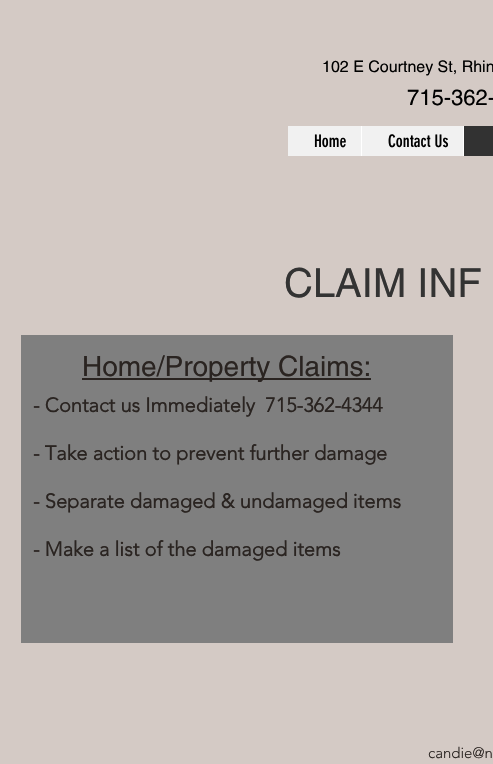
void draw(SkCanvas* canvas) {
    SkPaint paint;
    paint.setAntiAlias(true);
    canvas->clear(0xFFD4CAC5);
    SkFont font1(fontMgr->matchFamilyStyle("helvetica", SkFontStyle::Normal()), 16);
    font1.setSubpixel(true);
    paint.setColor(0xFF000000);
    canvas->drawString("102 E Courtney St, Rhin", 322, 72, font1, paint);
    SkFont font2(fontMgr->matchFamilyStyle("helvetica", SkFontStyle::Normal()), 22);
    font2.setSubpixel(true);
    canvas->drawString("715-362-", 407, 105, font2, paint);
    paint.setColor(0xFFF1F1F1);
    canvas->drawRect(SkRect::MakeXYWH(288, 126, 175, 30), paint);
    SkFont font3(fontMgr->matchFamilyStyle("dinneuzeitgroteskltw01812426", SkFontStyle::Normal()), 17);
    font3.setSubpixel(true);
    paint.setColor(0xFF000000);
    canvas->drawString("Home", 314, 147, font3, paint);
    paint.setColor(0xFFFFFFFF);
    canvas->drawRect(SkRect::MakeXYWH(361, 126, 1, 30), paint);
    paint.setColor(0xFF000000);
    canvas->drawString("Contact Us", 388, 147, font3, paint);
    paint.setColor(0xFF323232);
    canvas->drawRect(SkRect::MakeXYWH(464, 126, 29, 30), paint);
    paint.setColor(0xFFFFFFFF);
    canvas->drawRect(SkRect::MakeXYWH(463, 126, 1, 30), paint);
    SkFont font4(fontMgr->matchFamilyStyle("helvetica", SkFontStyle::Normal()), 40);
    font4.setSubpixel(true);
    paint.setColor(0xFF333333);
    canvas->drawString("CLAIM INF", 284, 297, font4, paint);
    paint.setColor(0xFF7F7F7F);
    canvas->drawRect(SkRect::MakeXYWH(21, 335, 432, 308), paint);
    paint.setColor(0xFF2A2421);
    canvas->drawRect(SkRect::MakeXYWH(82, 378, 289, 2), paint);
    SkFont font5(fontMgr->matchFamilyStyle("helvetica", SkFontStyle::Normal()), 28);
    font5.setSubpixel(true);
    canvas->drawString("Home/Property Claims:", 82, 376, font5, paint);
    SkFont font6(fontMgr->matchFamilyStyle("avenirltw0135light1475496", SkFontStyle::Bold()), 20);
    font6.setSubpixel(true);
    canvas->drawString("- Contact us Immediately  715-362-4344", 33, 412, font6, paint);
    canvas->drawString("- Take action to prevent further damage", 33, 460, font6, paint);
    canvas->drawString("- Separate damaged & undamaged items", 33, 508, font6, paint);
    canvas->drawString("- Make a list of the damaged items", 33, 556, font6, paint);
    SkFont font7(fontMgr->matchFamilyStyle("avenirltw0135light1475496", SkFontStyle(300, SkFontStyle::kNormal_Width, SkFontStyle::kUpright_Slant)), 15);
    font7.setSubpixel(true);
    canvas->drawString("candie@n", 428, 758, font7, paint);
}
